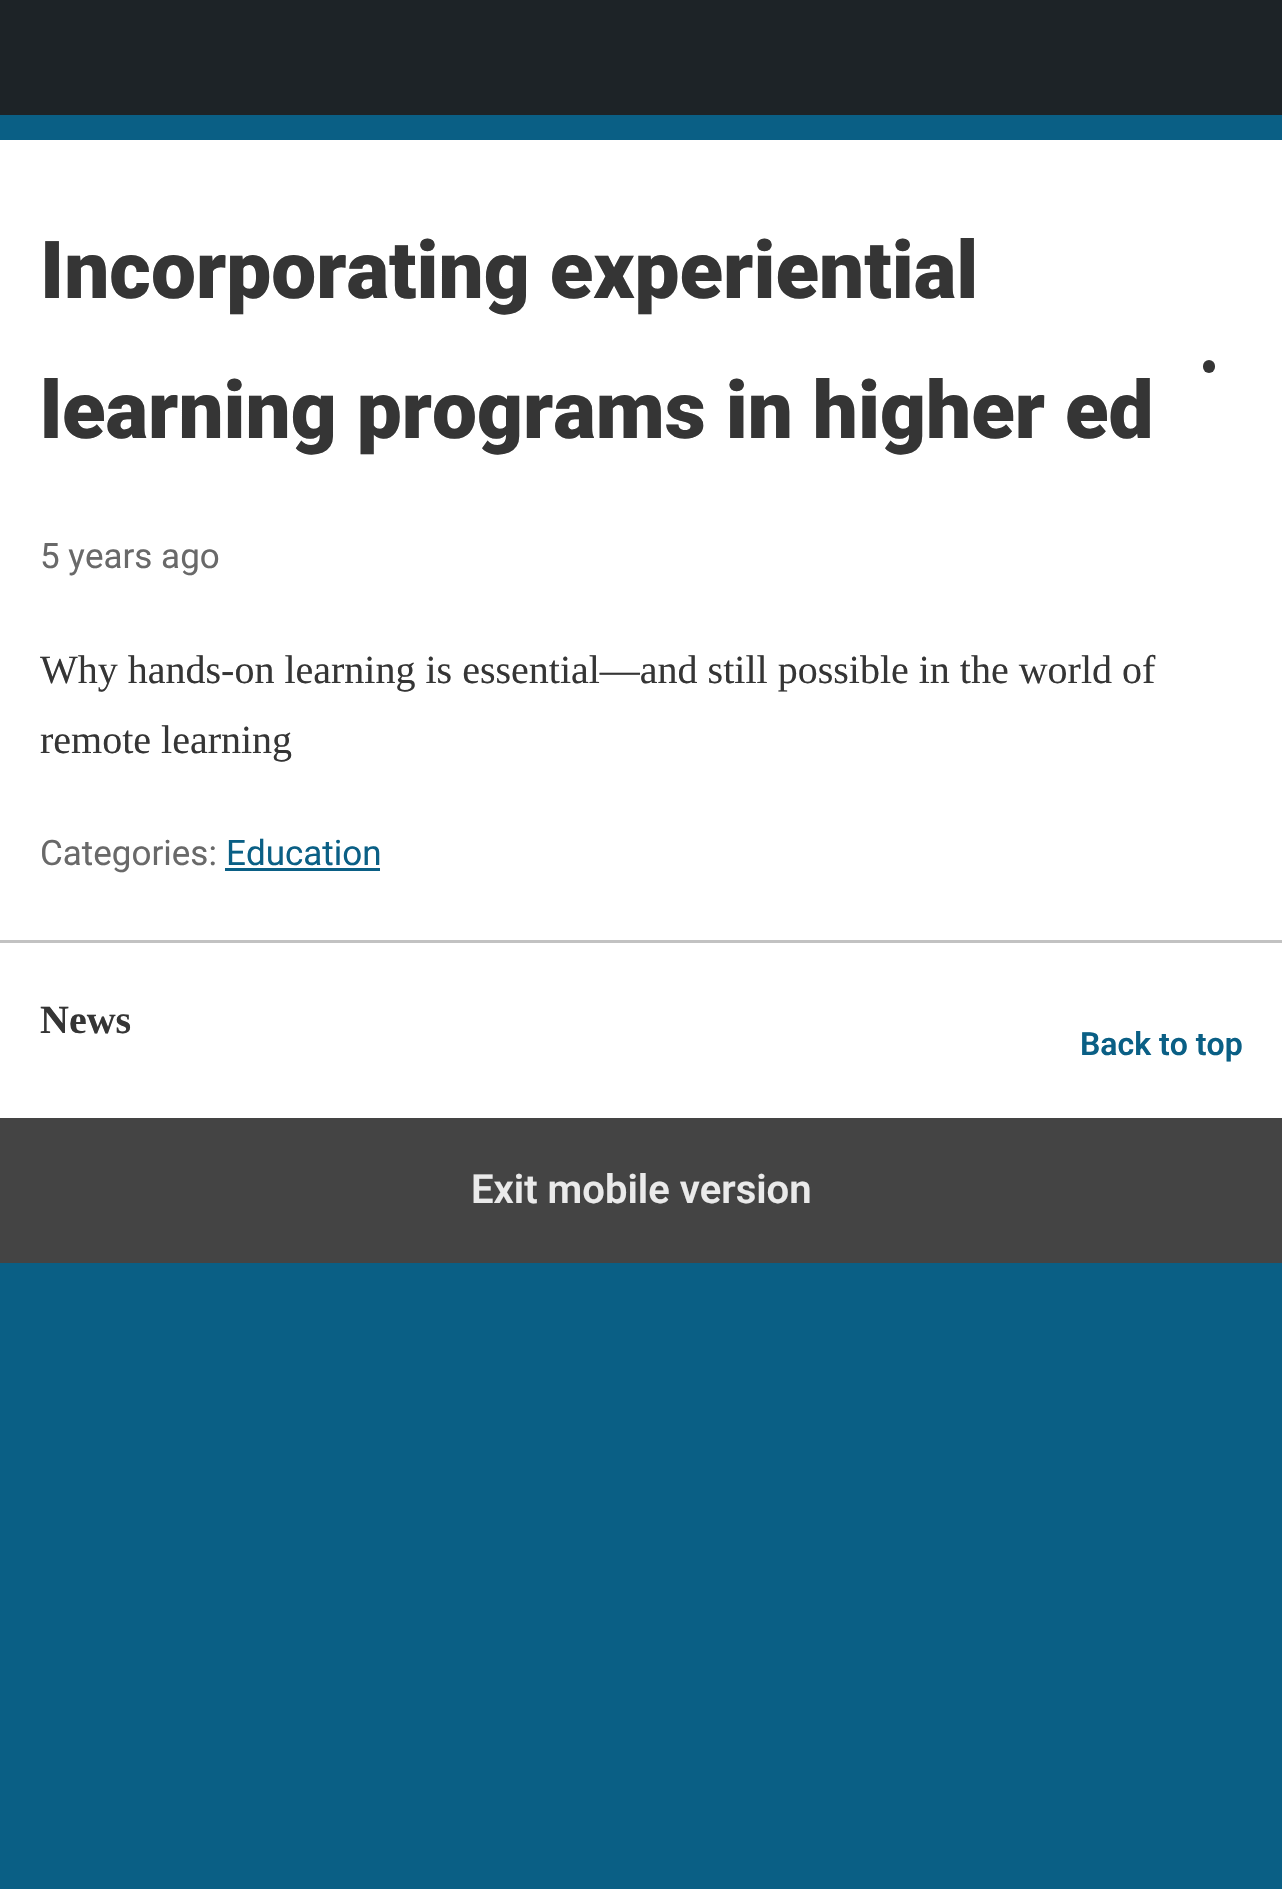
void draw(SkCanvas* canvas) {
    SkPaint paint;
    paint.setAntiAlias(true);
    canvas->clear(0xFF0A5F85);
    paint.setColor(0xFFFFFFFF);
    canvas->drawRect(SkRect::MakeXYWH(0, 140, 1282, 978), paint);
    paint.setColor(0xFF1D2327);
    canvas->drawRect(SkRect::MakeXYWH(0, 0, 1282, 115), paint);
    SkFont font1(fontMgr->matchFamilyStyle("Roboto", SkFontStyle(900, SkFontStyle::kNormal_Width, SkFontStyle::kUpright_Slant)), 80);
    font1.setSubpixel(true);
    paint.setColor(0xFF353535);
    canvas->drawString("Incorporating experiential", 40, 298, font1, paint);
    canvas->drawString("learning programs in higher ed", 40, 438, font1, paint);
    canvas->drawRoundRect(SkRect::MakeXYWH(1203, 360, 12, 13), 6, 6, paint);
    SkFont font2(fontMgr->matchFamilyStyle("Roboto", SkFontStyle::Normal()), 35);
    font2.setSubpixel(true);
    paint.setColor(0xFF696969);
    canvas->drawString("5 years ago", 40, 568, font2, paint);
    SkFont font3(fontMgr->matchFamilyStyle("Liberation Serif", SkFontStyle::Normal()), 40);
    font3.setSubpixel(true);
    paint.setColor(0xFF353535);
    canvas->drawString("Why hands-on learning is essential—and still possible in the world of", 40, 683, font3, paint);
    canvas->drawString("remote learning", 40, 753, font3, paint);
    paint.setColor(0xFF696969);
    canvas->drawString("Categories:", 40, 865, font2, paint);
    paint.setColor(0xFF0A5F85);
    canvas->drawString("Education", 226, 865, font2, paint);
    canvas->drawRect(SkRect::MakeXYWH(225, 868, 155, 3), paint);
    paint.setColor(0xFFC2C2C2);
    canvas->drawRect(SkRect::MakeXYWH(0, 940, 1282, 3), paint);
    SkFont font4(fontMgr->matchFamilyStyle("Liberation Serif", SkFontStyle::Bold()), 40);
    font4.setSubpixel(true);
    paint.setColor(0xFF353535);
    canvas->drawString("News", 40, 1033, font4, paint);
    SkFont font5(fontMgr->matchFamilyStyle("Roboto", SkFontStyle(600, SkFontStyle::kNormal_Width, SkFontStyle::kUpright_Slant)), 32);
    font5.setSubpixel(true);
    paint.setColor(0xFF0A5F85);
    canvas->drawString("Back to top", 1080, 1055, font5, paint);
    paint.setColor(0xFF444444);
    canvas->drawRect(SkRect::MakeXYWH(0, 1118, 1282, 145), paint);
    SkFont font6(fontMgr->matchFamilyStyle("Roboto", SkFontStyle(600, SkFontStyle::kNormal_Width, SkFontStyle::kUpright_Slant)), 40);
    font6.setSubpixel(true);
    paint.setColor(0xFFEAEAEA);
    canvas->drawString("Exit mobile version", 471, 1203, font6, paint);
}
